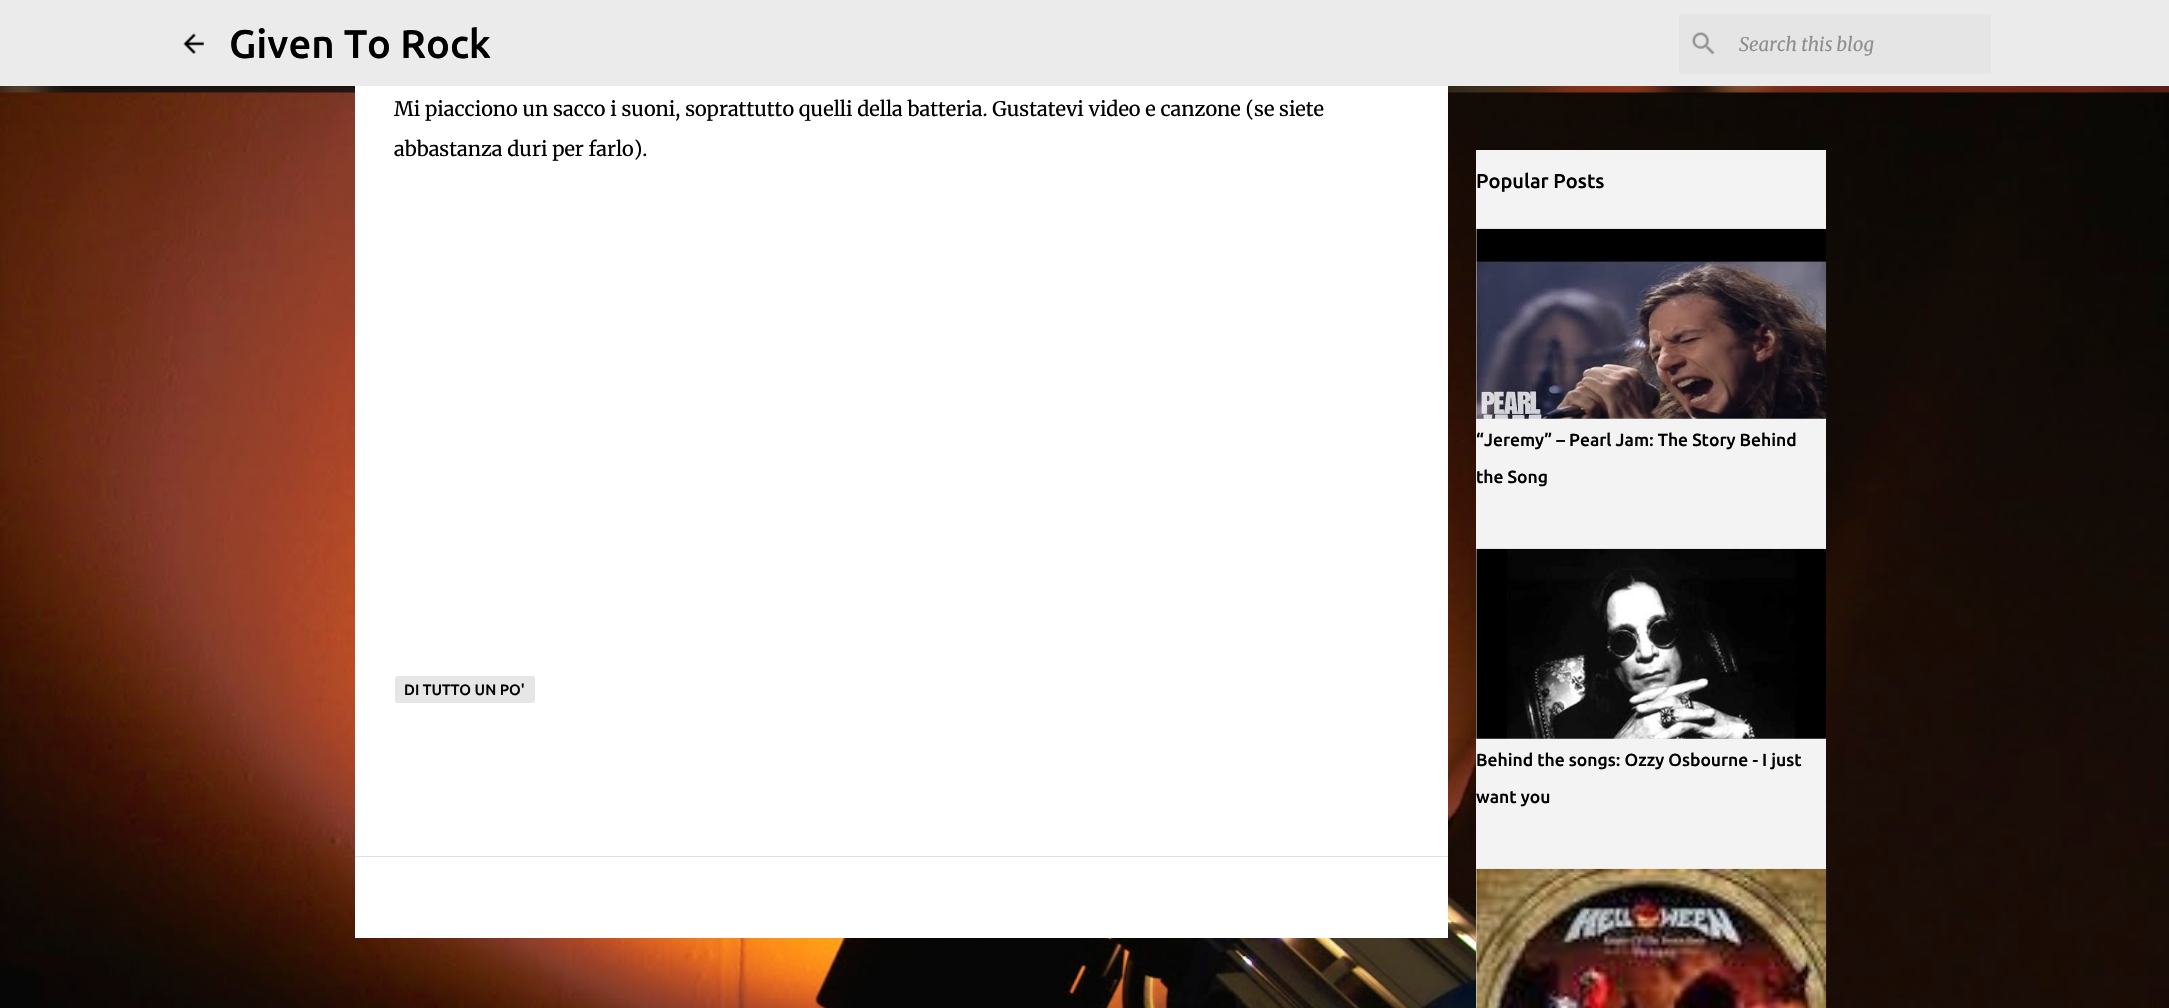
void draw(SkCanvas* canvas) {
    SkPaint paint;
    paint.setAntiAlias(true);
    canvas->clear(0xFFFFFFFF);
    canvas->drawImageRect(SkImages::DeferredFromEncodedData(SkData::MakeFromFileName("img1.png")), SkRect::MakeXYWH(0, 86, 2169, 922), SkSamplingOptions());
    paint.setColor(0xFFEBEBEB);
    canvas->drawRect(SkRect::MakeXYWH(0, 0, 2169, 86), paint);
    canvas->drawImageRect(SkImages::DeferredFromEncodedData(SkData::MakeFromFileName("img2.png")), SkRect::MakeXYWH(183, 33, 21, 21), SkSamplingOptions());
    SkFont font1(fontMgr->matchFamilyStyle("Ubuntu", SkFontStyle(500, SkFontStyle::kNormal_Width, SkFontStyle::kUpright_Slant)), 40);
    font1.setSubpixel(true);
    paint.setColor(0xFF000000);
    canvas->drawString("Given To Rock", 229, 58, font1, paint);
    paint.setColor(0xFFE5E5E5);
    canvas->drawRect(SkRect::MakeXYWH(1679, 14, 312, 60), paint);
    canvas->drawImageRect(SkImages::DeferredFromEncodedData(SkData::MakeFromFileName("img3.png")), SkRect::MakeXYWH(1692, 32, 23, 23), SkSamplingOptions());
    SkFont font2(fontMgr->matchFamilyStyle("Merriweather", SkFontStyle::Italic()), 18.75f);
    font2.setSubpixel(true);
    paint.setColor(0xFF8F8F8F);
    canvas->drawString("Search this blog", 1739, 51, font2, paint);
    canvas->drawImageRect(SkImages::DeferredFromEncodedData(SkData::MakeFromFileName("img7.png")), SkRect::MakeXYWH(0, 86, 2169, 7), SkSamplingOptions());
    paint.setColor(0xFFFFFFFF);
    canvas->drawRect(SkRect::MakeXYWH(355, 86, 1093, 770), paint);
    SkFont font3(fontMgr->matchFamilyStyle("Merriweather", SkFontStyle(300, SkFontStyle::kNormal_Width, SkFontStyle::kUpright_Slant)), 20);
    font3.setSubpixel(true);
    paint.setColor(0xFF000000);
    canvas->drawString("Mi piacciono un sacco i suoni, soprattutto quelli della batteria. Gustatevi video e canzone (se siete", 394, 116, font3, paint);
    canvas->drawString("abbastanza duri per farlo).", 394, 156, font3, paint);
    paint.setColor(0xFFE6E6E6);
    canvas->drawRoundRect(SkRect::MakeXYWH(395, 676, 140, 27), 2.5f, 2.5f, paint);
    SkFont font4(fontMgr->matchFamilyStyle("Ubuntu", SkFontStyle(500, SkFontStyle::kNormal_Width, SkFontStyle::kUpright_Slant)), 15);
    font4.setSubpixel(true);
    paint.setColor(0xFF000000);
    canvas->drawString("DI TUTTO UN PO'", 404, 695, font4, paint);
    paint.setColor(0xFFFFFFFF);
    canvas->drawRect(SkRect::MakeXYWH(355, 857, 1093, 81), paint);
    paint.setColor(0xFFE1E1E1);
    canvas->drawRect(SkRect::MakeXYWH(355, 856, 1093, 1), paint);
    paint.setColor(0xFFF3F3F3);
    canvas->drawRect(SkRect::MakeXYWH(1476, 150, 350, 858), paint);
    SkFont font5(fontMgr->matchFamilyStyle("Ubuntu", SkFontStyle(500, SkFontStyle::kNormal_Width, SkFontStyle::kUpright_Slant)), 20);
    font5.setSubpixel(true);
    paint.setColor(0xFF000000);
    canvas->drawString("Popular Posts", 1476, 188, font5, paint);
    canvas->drawImageRect(SkImages::DeferredFromEncodedData(SkData::MakeFromFileName("img4.png")), SkRect::MakeXYWH(1476, 228, 351, 191), SkSamplingOptions());
    SkFont font6(fontMgr->matchFamilyStyle("Ubuntu", SkFontStyle(500, SkFontStyle::kNormal_Width, SkFontStyle::kUpright_Slant)), 17.5f);
    font6.setSubpixel(true);
    canvas->drawString("“Jeremy” – Pearl Jam: The Story Behind", 1476, 446, font6, paint);
    canvas->drawString("the Song", 1476, 483, font6, paint);
    canvas->drawImageRect(SkImages::DeferredFromEncodedData(SkData::MakeFromFileName("img5.png")), SkRect::MakeXYWH(1476, 548, 350, 191), SkSamplingOptions());
    canvas->drawString("Behind the songs: Ozzy Osbourne - I just", 1476, 766, font6, paint);
    canvas->drawString("want you", 1476, 803, font6, paint);
    canvas->drawImageRect(SkImages::DeferredFromEncodedData(SkData::MakeFromFileName("img6.png")), SkRect::MakeXYWH(1476, 868, 351, 140), SkSamplingOptions());
}
